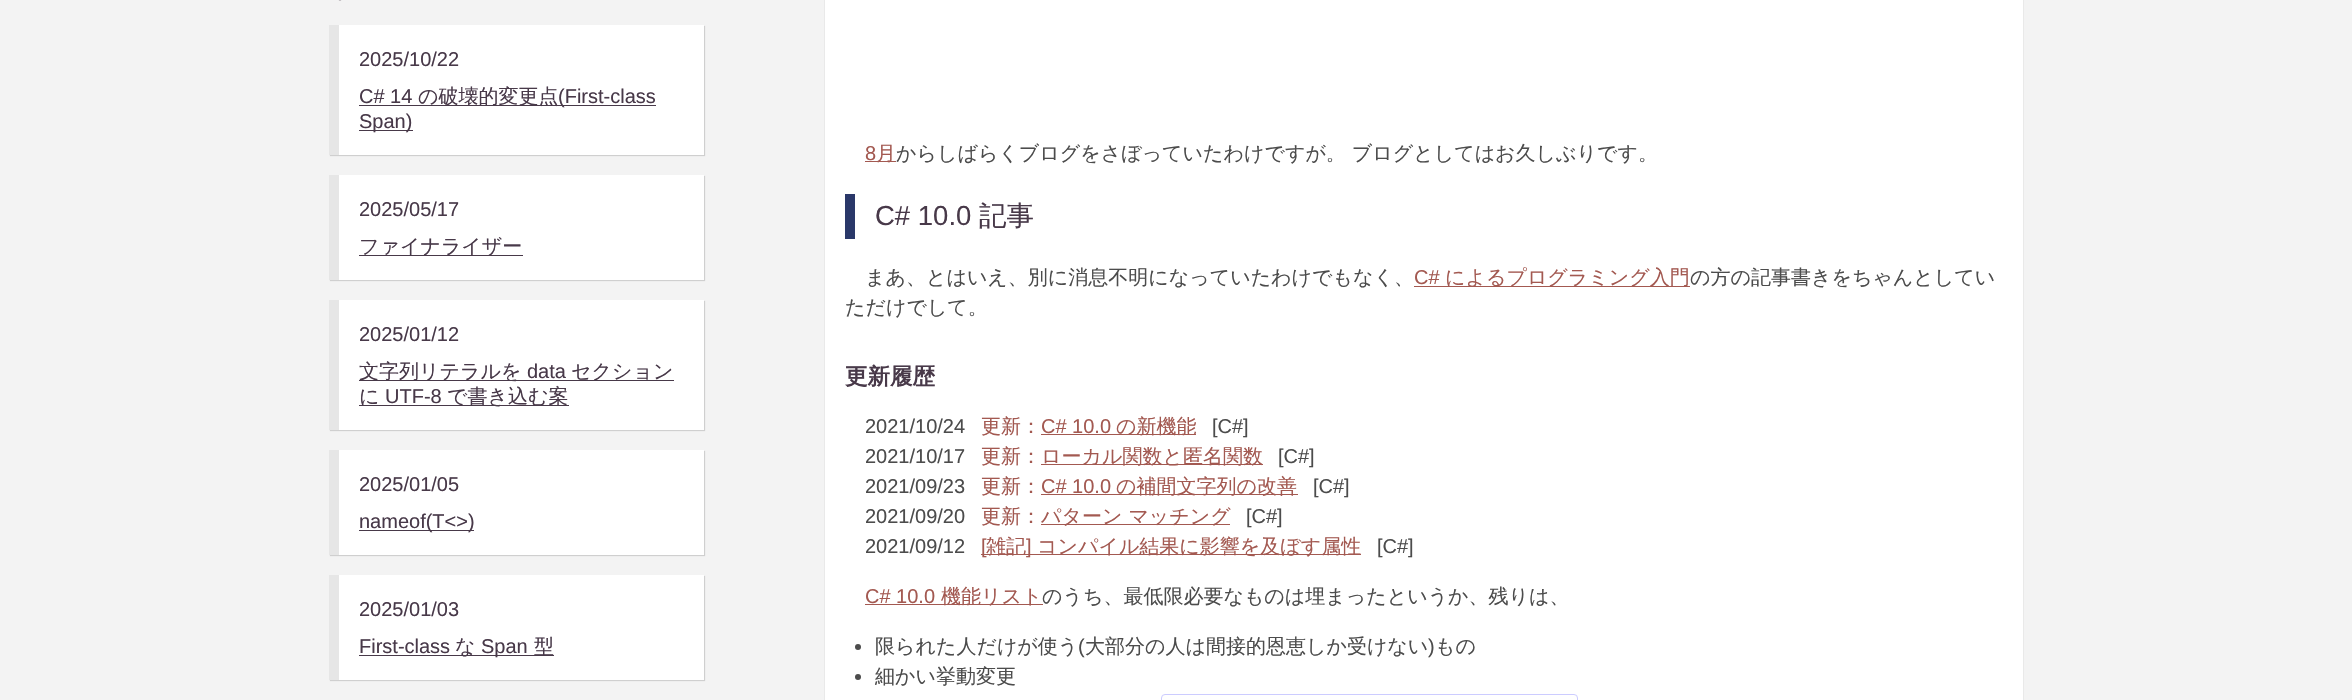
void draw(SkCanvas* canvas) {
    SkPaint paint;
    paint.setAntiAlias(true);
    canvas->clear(0xFFF3F3F3);
    canvas->drawImageRect(SkImages::DeferredFromEncodedData(SkData::MakeFromFileName("img1.png")), SkRect::MakeXYWH(338, 0, 4, 1), SkSamplingOptions());
    paint.setColor(0x598D8D8D);
    paint.setMaskFilter(SkMaskFilter::MakeBlur(kNormal_SkBlurStyle, 0.5f));
    canvas->drawRect(SkRect::MakeXYWH(330, 26, 375, 130), paint);
    paint.setMaskFilter(nullptr);
    paint.setColor(0xFFFFFFFF);
    canvas->drawRect(SkRect::MakeXYWH(339, 25, 365, 130), paint);
    paint.setColor(0xFFE6E6E6);
    canvas->drawRect(SkRect::MakeXYWH(329, 25, 10, 130), paint);
    SkFont font1(fontMgr->matchFamilyStyle("Liberation Sans", SkFontStyle::Normal()), 20);
    font1.setSubpixel(true);
    paint.setColor(0xFF483949);
    canvas->drawString("2025/10/22", 359, 66, font1, paint);
    canvas->drawString("C# 14", 359, 103, font1, paint);
    canvas->drawRect(SkRect::MakeXYWH(359, 105, 297, 1), paint);
    SkFont font2(fontMgr->matchFamilyStyle("WenQuanYi Zen Hei", SkFontStyle(500, SkFontStyle::kNormal_Width, SkFontStyle::kUpright_Slant)), 20);
    font2.setSubpixel(true);
    canvas->drawString("の破壊的変更点", 418, 103, font2, paint);
    canvas->drawString("(First-class", 558, 103, font1, paint);
    canvas->drawRect(SkRect::MakeXYWH(359, 130, 54, 1), paint);
    canvas->drawString("Span)", 359, 128, font1, paint);
    paint.setColor(0x598D8D8D);
    paint.setMaskFilter(SkMaskFilter::MakeBlur(kNormal_SkBlurStyle, 0.5f));
    canvas->drawRect(SkRect::MakeXYWH(330, 176, 375, 105), paint);
    paint.setMaskFilter(nullptr);
    paint.setColor(0xFFFFFFFF);
    canvas->drawRect(SkRect::MakeXYWH(339, 175, 365, 105), paint);
    paint.setColor(0xFFE6E6E6);
    canvas->drawRect(SkRect::MakeXYWH(329, 175, 10, 105), paint);
    paint.setColor(0xFF483949);
    canvas->drawString("2025/05/17", 359, 216, font1, paint);
    canvas->drawRect(SkRect::MakeXYWH(359, 255, 164, 1), paint);
    canvas->drawString("ファイナライザー", 359, 253, font2, paint);
    paint.setColor(0x598D8D8D);
    paint.setMaskFilter(SkMaskFilter::MakeBlur(kNormal_SkBlurStyle, 0.5f));
    canvas->drawRect(SkRect::MakeXYWH(330, 301, 375, 130), paint);
    paint.setMaskFilter(nullptr);
    paint.setColor(0xFFFFFFFF);
    canvas->drawRect(SkRect::MakeXYWH(339, 300, 365, 130), paint);
    paint.setColor(0xFFE6E6E6);
    canvas->drawRect(SkRect::MakeXYWH(329, 300, 10, 130), paint);
    paint.setColor(0xFF483949);
    canvas->drawString("2025/01/12", 359, 341, font1, paint);
    canvas->drawRect(SkRect::MakeXYWH(359, 380, 315, 1), paint);
    canvas->drawString("文字列リテラルを", 359, 378, font2, paint);
    canvas->drawString("data", 527, 378, font1, paint);
    canvas->drawString("セクション", 571, 378, font2, paint);
    canvas->drawRect(SkRect::MakeXYWH(359, 405, 210, 1), paint);
    canvas->drawString("に", 359, 403, font2, paint);
    canvas->drawString("UTF-8", 385, 403, font1, paint);
    canvas->drawString("で書き込む案", 447, 403, font2, paint);
    paint.setColor(0x598D8D8D);
    paint.setMaskFilter(SkMaskFilter::MakeBlur(kNormal_SkBlurStyle, 0.5f));
    canvas->drawRect(SkRect::MakeXYWH(330, 451, 375, 105), paint);
    paint.setMaskFilter(nullptr);
    paint.setColor(0xFFFFFFFF);
    canvas->drawRect(SkRect::MakeXYWH(339, 450, 365, 105), paint);
    paint.setColor(0xFFE6E6E6);
    canvas->drawRect(SkRect::MakeXYWH(329, 450, 10, 105), paint);
    paint.setColor(0xFF483949);
    canvas->drawString("2025/01/05", 359, 491, font1, paint);
    canvas->drawRect(SkRect::MakeXYWH(359, 530, 115, 1), paint);
    canvas->drawString("nameof(T<>)", 359, 528, font1, paint);
    paint.setColor(0x598D8D8D);
    paint.setMaskFilter(SkMaskFilter::MakeBlur(kNormal_SkBlurStyle, 0.5f));
    canvas->drawRect(SkRect::MakeXYWH(330, 576, 375, 105), paint);
    paint.setMaskFilter(nullptr);
    paint.setColor(0xFFFFFFFF);
    canvas->drawRect(SkRect::MakeXYWH(339, 575, 365, 105), paint);
    paint.setColor(0xFFE6E6E6);
    canvas->drawRect(SkRect::MakeXYWH(329, 575, 10, 105), paint);
    paint.setColor(0xFF483949);
    canvas->drawString("2025/01/03", 359, 616, font1, paint);
    canvas->drawString("First-class", 359, 653, font1, paint);
    canvas->drawRect(SkRect::MakeXYWH(359, 655, 195, 1), paint);
    canvas->drawString("な", 455, 653, font2, paint);
    canvas->drawString("Span", 481, 653, font1, paint);
    canvas->drawString("型", 534, 653, font2, paint);
    paint.setColor(0xFFFFFFFF);
    canvas->drawRect(SkRect::MakeXYWH(824.5f, -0.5f, 1199, 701), paint);
    paint.setStyle(SkPaint::kStroke_Style);
    paint.setStrokeWidth(1);
    paint.setColor(0xFFE9E9E9);
    canvas->drawRect(SkRect::MakeXYWH(824.5f, -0.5f, 1199, 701), paint);
    paint.setStyle(SkPaint::kFill_Style);
    paint.setColor(0xFFA35951);
    canvas->drawString("8", 865, 160, font1, paint);
    canvas->drawRect(SkRect::MakeXYWH(865, 161, 31, 1), paint);
    canvas->drawString("月", 876, 160, font2, paint);
    paint.setColor(0xFF4C4C4C);
    canvas->drawString("からしばらくブログをさぼっていたわけですが。 ブログとしてはお久しぶりです。", 896, 160, font2, paint);
    paint.setColor(0xFF2A3869);
    canvas->drawRect(SkRect::MakeXYWH(845, 194, 10, 45), paint);
    SkFont font3(fontMgr->matchFamilyStyle("Liberation Sans", SkFontStyle::Normal()), 27.5f);
    font3.setSubpixel(true);
    paint.setColor(0xFF483949);
    canvas->drawString("C# 10.0", 875, 225, font3, paint);
    SkFont font4(fontMgr->matchFamilyStyle("WenQuanYi Zen Hei", SkFontStyle(500, SkFontStyle::kNormal_Width, SkFontStyle::kUpright_Slant)), 27.5f);
    font4.setSubpixel(true);
    canvas->drawString("記事", 979, 225, font4, paint);
    paint.setColor(0xFF4C4C4C);
    canvas->drawString("まあ、とはいえ、別に消息不明になっていたわけでもなく、", 865, 284, font2, paint);
    paint.setColor(0xFFA35951);
    canvas->drawString("C#", 1414, 284, font1, paint);
    canvas->drawRect(SkRect::MakeXYWH(1414, 286, 276, 1), paint);
    canvas->drawString("によるプログラミング入門", 1445, 284, font2, paint);
    paint.setColor(0xFF4C4C4C);
    canvas->drawString("の方の記事書きをちゃんとしてい", 1690, 284, font2, paint);
    canvas->drawString("ただけでして。", 845, 314, font2, paint);
    SkFont font5(fontMgr->matchFamilyStyle("WenQuanYi Zen Hei", SkFontStyle::Bold()), 22.5f);
    font5.setSubpixel(true);
    paint.setColor(0xFF483949);
    canvas->drawString("更新履歴", 845, 384, font5, paint);
    paint.setColor(0xFF4C4C4C);
    canvas->drawString("2021/10/24", 865, 433, font1, paint);
    paint.setColor(0xFFA35951);
    canvas->drawString("更新：", 981, 433, font2, paint);
    canvas->drawString("C# 10.0", 1041, 433, font1, paint);
    canvas->drawRect(SkRect::MakeXYWH(1041, 434, 155, 1), paint);
    canvas->drawString("の新機能", 1116, 433, font2, paint);
    paint.setColor(0xFF4C4C4C);
    canvas->drawString("[C#]", 1212, 433, font1, paint);
    canvas->drawString("2021/10/17", 865, 463, font1, paint);
    paint.setColor(0xFFA35951);
    canvas->drawString("更新：", 981, 463, font2, paint);
    canvas->drawRect(SkRect::MakeXYWH(1041, 464, 222, 1), paint);
    canvas->drawString("ローカル関数と匿名関数", 1041, 463, font2, paint);
    paint.setColor(0xFF4C4C4C);
    canvas->drawString("[C#]", 1278, 463, font1, paint);
    canvas->drawString("2021/09/23", 865, 493, font1, paint);
    paint.setColor(0xFFA35951);
    canvas->drawString("更新：", 981, 493, font2, paint);
    canvas->drawString("C# 10.0", 1041, 493, font1, paint);
    canvas->drawRect(SkRect::MakeXYWH(1041, 494, 257, 1), paint);
    canvas->drawString("の補間文字列の改善", 1116, 493, font2, paint);
    paint.setColor(0xFF4C4C4C);
    canvas->drawString("[C#]", 1313, 493, font1, paint);
    canvas->drawString("2021/09/20", 865, 523, font1, paint);
    paint.setColor(0xFFA35951);
    canvas->drawString("更新：", 981, 523, font2, paint);
    canvas->drawRect(SkRect::MakeXYWH(1041, 524, 189, 1), paint);
    canvas->drawString("パターン マッチング", 1041, 523, font2, paint);
    paint.setColor(0xFF4C4C4C);
    canvas->drawString("[C#]", 1246, 523, font1, paint);
    canvas->drawString("2021/09/12", 865, 553, font1, paint);
    paint.setColor(0xFFA35951);
    canvas->drawRect(SkRect::MakeXYWH(981, 554, 380, 1), paint);
    canvas->drawString("[", 981, 553, font1, paint);
    canvas->drawString("雑記", 986, 553, font2, paint);
    canvas->drawString("]", 1026, 553, font1, paint);
    canvas->drawString("コンパイル結果に影響を及ぼす属性", 1037, 553, font2, paint);
    paint.setColor(0xFF4C4C4C);
    canvas->drawString("[C#]", 1377, 553, font1, paint);
    paint.setColor(0xFFA35951);
    canvas->drawString("C# 10.0", 865, 603, font1, paint);
    canvas->drawRect(SkRect::MakeXYWH(865, 604, 178, 1), paint);
    canvas->drawString("機能リスト", 941, 603, font2, paint);
    paint.setColor(0xFF4C4C4C);
    canvas->drawString("のうち、最低限必要なものは埋まったというか、残りは、", 1042, 603, font2, paint);
    canvas->drawCircle(858, 647, 3, paint);
    canvas->drawString("限られた人だけが使う", 875, 653, font2, paint);
    canvas->drawString("(", 1078, 653, font1, paint);
    canvas->drawString("大部分の人は間接的恩恵しか受けない", 1085, 653, font2, paint);
    canvas->drawString(")", 1428, 653, font1, paint);
    canvas->drawString("もの", 1435, 653, font2, paint);
    canvas->drawCircle(858, 677, 3, paint);
    canvas->drawString("細かい挙動変更", 875, 683, font2, paint);
    paint.setStyle(SkPaint::kStroke_Style);
    paint.setColor(0xFFCCCCFF);
    canvas->drawRoundRect(SkRect::MakeXYWH(1161.5f, 694.5f, 416, 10), 3.5f, 3.5f, paint);
}
